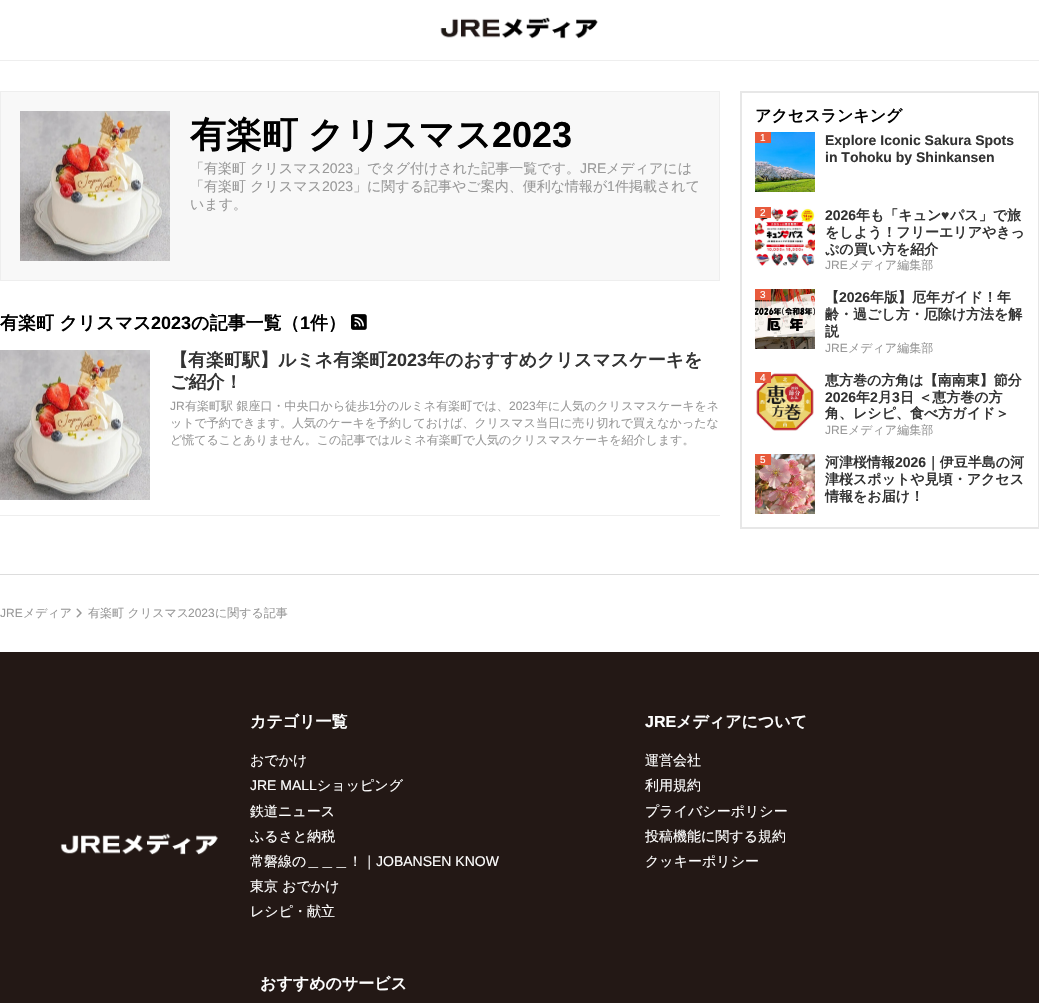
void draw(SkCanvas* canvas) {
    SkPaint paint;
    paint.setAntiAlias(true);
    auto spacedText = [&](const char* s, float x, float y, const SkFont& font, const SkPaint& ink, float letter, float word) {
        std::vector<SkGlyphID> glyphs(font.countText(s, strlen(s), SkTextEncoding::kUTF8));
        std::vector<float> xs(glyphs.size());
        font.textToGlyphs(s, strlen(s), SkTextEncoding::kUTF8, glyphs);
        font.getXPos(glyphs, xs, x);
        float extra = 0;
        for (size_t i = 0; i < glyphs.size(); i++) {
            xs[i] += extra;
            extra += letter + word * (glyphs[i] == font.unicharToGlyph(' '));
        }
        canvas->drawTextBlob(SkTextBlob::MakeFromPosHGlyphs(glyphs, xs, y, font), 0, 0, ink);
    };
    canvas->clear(0xFFFFFFFF);
    paint.setColor(0xFFEEEEEE);
    canvas->drawRect(SkRect::MakeXYWH(0, 60, 1039, 1), paint);
    canvas->drawImageRect(SkImages::DeferredFromEncodedData(SkData::MakeFromFileName("img1.png")), SkRect::MakeXYWH(440, 17, 158, 22), SkSamplingOptions());
    paint.setColor(0xFFF8F8F8);
    canvas->drawRect(SkRect::MakeXYWH(0.5f, 91.5f, 719, 189), paint);
    paint.setStyle(SkPaint::kStroke_Style);
    paint.setStrokeWidth(1);
    paint.setColor(0xFFEEEEEE);
    canvas->drawRect(SkRect::MakeXYWH(0.5f, 91.5f, 719, 189), paint);
    canvas->drawImageRect(SkImages::DeferredFromEncodedData(SkData::MakeFromFileName("img2.png")), SkRect::MakeXYWH(20, 111, 150, 150), SkSamplingOptions());
    SkFont font1(fontMgr->matchFamilyStyle("WenQuanYi Zen Hei", SkFontStyle::Bold()), 36);
    font1.setSubpixel(true);
    paint.setStyle(SkPaint::kFill_Style);
    paint.setColor(0xFF000000);
    spacedText("有楽町 クリスマス", 190, 147, font1, paint, 0, -1);
    SkFont font2(fontMgr->matchFamilyStyle("Liberation Sans", SkFontStyle::Bold()), 36);
    font2.setSubpixel(true);
    canvas->drawString("2023", 492, 147, font2, paint);
    SkFont font3(fontMgr->matchFamilyStyle("WenQuanYi Zen Hei", SkFontStyle(500, SkFontStyle::kNormal_Width, SkFontStyle::kUpright_Slant)), 14);
    font3.setSubpixel(true);
    paint.setColor(0xFF999999);
    canvas->drawString("「有楽町 クリスマス", 190, 173, font3, paint);
    SkFont font4(fontMgr->matchFamilyStyle("Liberation Sans", SkFontStyle::Normal()), 14);
    font4.setSubpixel(true);
    canvas->drawString("2023", 322, 173, font4, paint);
    canvas->drawString("」でタグ付けされた記事一覧です。", 353, 173, font3, paint);
    canvas->drawString("JRE", 580, 173, font4, paint);
    canvas->drawString("メディアには", 606, 173, font3, paint);
    canvas->drawString("「有楽町 クリスマス", 190, 191, font3, paint);
    canvas->drawString("2023", 322, 191, font4, paint);
    canvas->drawString("」に関する記事やご案内、便利な情報が", 353, 191, font3, paint);
    canvas->drawString("1", 607, 191, font4, paint);
    canvas->drawString("件掲載されて", 615, 191, font3, paint);
    canvas->drawString("います。", 190, 209, font3, paint);
    SkFont font5(fontMgr->matchFamilyStyle("WenQuanYi Zen Hei", SkFontStyle::Bold()), 18);
    font5.setSubpixel(true);
    paint.setColor(0xFF000000);
    canvas->drawString("有楽町 クリスマス", 0, 329, font5, paint);
    SkFont font6(fontMgr->matchFamilyStyle("Liberation Sans", SkFontStyle::Bold()), 18);
    font6.setSubpixel(true);
    canvas->drawString("2023", 151, 329, font6, paint);
    canvas->drawString("の記事一覧（", 191, 329, font5, paint);
    canvas->drawString("1", 300, 329, font6, paint);
    canvas->drawString("件）", 310, 329, font5, paint);
    canvas->drawImageRect(SkImages::DeferredFromEncodedData(SkData::MakeFromFileName("img3.png")), SkRect::MakeXYWH(351, 314, 16, 16), SkSamplingOptions());
    paint.setColor(0xFFEEEEEE);
    canvas->drawRect(SkRect::MakeXYWH(0, 515, 720, 1), paint);
    canvas->drawImageRect(SkImages::DeferredFromEncodedData(SkData::MakeFromFileName("img2.png")), SkRect::MakeXYWH(0, 350, 150, 150), SkSamplingOptions());
    paint.setColor(0xFF333333);
    canvas->drawString("【有楽町駅】ルミネ有楽町", 170, 366, font5, paint);
    canvas->drawString("2023", 387, 366, font6, paint);
    canvas->drawString("年のおすすめクリスマスケーキを", 427, 366, font5, paint);
    canvas->drawString("ご紹介！", 170, 388, font5, paint);
    SkFont font7(fontMgr->matchFamilyStyle("Liberation Sans", SkFontStyle::Normal()), 12);
    font7.setSubpixel(true);
    paint.setColor(0xFF999999);
    canvas->drawString("JR", 170, 410, font7, paint);
    SkFont font8(fontMgr->matchFamilyStyle("WenQuanYi Zen Hei", SkFontStyle(500, SkFontStyle::kNormal_Width, SkFontStyle::kUpright_Slant)), 12);
    font8.setSubpixel(true);
    canvas->drawString("有楽町駅 銀座口・中央口から徒歩", 185, 410, font8, paint);
    canvas->drawString("1", 369, 410, font7, paint);
    canvas->drawString("分のルミネ有楽町では、", 375, 410, font8, paint);
    canvas->drawString("2023", 509, 410, font7, paint);
    canvas->drawString("年に人気のクリスマスケーキをネ", 536, 410, font8, paint);
    canvas->drawString("ットで予約できます。人気のケーキを予約しておけば、クリスマス当日に売り切れで買えなかったな", 170, 427, font8, paint);
    canvas->drawString("ど慌てることありません。この記事ではルミネ有楽町で人気のクリスマスケーキを紹介します。", 170, 444, font8, paint);
    paint.setStyle(SkPaint::kStroke_Style);
    paint.setStrokeWidth(2);
    paint.setColor(0xFFE7E7E7);
    canvas->drawRect(SkRect::MakeXYWH(741, 92, 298, 436), paint);
    SkFont font9(fontMgr->matchFamilyStyle("WenQuanYi Zen Hei", SkFontStyle::Bold()), 16);
    font9.setSubpixel(true);
    paint.setStyle(SkPaint::kFill_Style);
    paint.setColor(0xFF000000);
    canvas->drawString("アクセスランキング", 755, 121, font9, paint);
    canvas->drawImageRect(SkImages::DeferredFromEncodedData(SkData::MakeFromFileName("img4.png")), SkRect::MakeXYWH(755, 132, 60, 60), SkSamplingOptions());
    paint.setColor(0xFFE85A3C);
    canvas->drawRect(SkRect::MakeXYWH(755, 132, 16, 11), paint);
    SkFont font10(fontMgr->matchFamilyStyle("Liberation Sans", SkFontStyle::Normal()), 10);
    font10.setSubpixel(true);
    paint.setColor(0xFFFFFFFF);
    canvas->drawString("1", 760, 141, font10, paint);
    SkFont font11(fontMgr->matchFamilyStyle("Liberation Sans", SkFontStyle::Bold()), 14);
    font11.setSubpixel(true);
    paint.setColor(0xFF333333);
    canvas->drawString("Explore Iconic Sakura Spots", 825, 145, font11, paint);
    canvas->drawString("in Tohoku by Shinkansen", 825, 162, font11, paint);
    canvas->drawImageRect(SkImages::DeferredFromEncodedData(SkData::MakeFromFileName("img5.png")), SkRect::MakeXYWH(755, 208, 60, 58), SkSamplingOptions());
    paint.setColor(0xFFE85A3C);
    canvas->drawRect(SkRect::MakeXYWH(755, 207, 16, 11), paint);
    paint.setColor(0xFFFFFFFF);
    canvas->drawString("2", 760, 216, font10, paint);
    paint.setColor(0xFF333333);
    canvas->drawString("2026", 825, 220, font11, paint);
    SkFont font12(fontMgr->matchFamilyStyle("WenQuanYi Zen Hei", SkFontStyle::Bold()), 14);
    font12.setSubpixel(true);
    canvas->drawString("年も「キュン", 856, 220, font12, paint);
    canvas->drawString("♥", 941, 220, font11, paint);
    canvas->drawString("パス」で旅", 950, 220, font12, paint);
    canvas->drawString("をしよう！フリーエリアやきっ", 825, 237, font12, paint);
    canvas->drawString("ぷの買い方を紹介", 825, 254, font12, paint);
    paint.setColor(0xFF999999);
    canvas->drawString("JRE", 825, 269, font7, paint);
    canvas->drawString("メディア編集部", 848, 269, font8, paint);
    canvas->drawImageRect(SkImages::DeferredFromEncodedData(SkData::MakeFromFileName("img6.png")), SkRect::MakeXYWH(755, 289, 60, 60), SkSamplingOptions());
    paint.setColor(0xFFE85A3C);
    canvas->drawRect(SkRect::MakeXYWH(755, 289, 16, 11), paint);
    paint.setColor(0xFFFFFFFF);
    canvas->drawString("3", 760, 298, font10, paint);
    paint.setColor(0xFF333333);
    canvas->drawString("【", 825, 302, font12, paint);
    canvas->drawString("2026", 839, 302, font11, paint);
    canvas->drawString("年版】厄年ガイド！年", 870, 302, font12, paint);
    canvas->drawString("齢・過ごし方・厄除け方法を解", 825, 319, font12, paint);
    canvas->drawString("説", 825, 336, font12, paint);
    paint.setColor(0xFF999999);
    canvas->drawString("JRE", 825, 352, font7, paint);
    canvas->drawString("メディア編集部", 848, 352, font8, paint);
    canvas->drawImageRect(SkImages::DeferredFromEncodedData(SkData::MakeFromFileName("img7.png")), SkRect::MakeXYWH(756, 373, 58, 58), SkSamplingOptions());
    paint.setColor(0xFFE85A3C);
    canvas->drawRect(SkRect::MakeXYWH(755, 372, 16, 11), paint);
    paint.setColor(0xFFFFFFFF);
    canvas->drawString("4", 760, 381, font10, paint);
    paint.setColor(0xFF333333);
    canvas->drawString("恵方巻の方角は【南南東】節分", 825, 385, font12, paint);
    canvas->drawString("2026", 825, 402, font11, paint);
    canvas->drawString("年", 856, 402, font12, paint);
    canvas->drawString("2", 870, 402, font11, paint);
    canvas->drawString("月", 878, 402, font12, paint);
    canvas->drawString("3", 892, 402, font11, paint);
    canvas->drawString("日 ＜恵方巻の方", 900, 402, font12, paint);
    canvas->drawString("角、レシピ、食べ方ガイド＞", 825, 418, font12, paint);
    paint.setColor(0xFF999999);
    canvas->drawString("JRE", 825, 434, font7, paint);
    canvas->drawString("メディア編集部", 848, 434, font8, paint);
    canvas->drawImageRect(SkImages::DeferredFromEncodedData(SkData::MakeFromFileName("img8.png")), SkRect::MakeXYWH(755, 454, 60, 60), SkSamplingOptions());
    paint.setColor(0xFFE85A3C);
    canvas->drawRect(SkRect::MakeXYWH(755, 454, 16, 11), paint);
    paint.setColor(0xFFFFFFFF);
    canvas->drawString("5", 760, 463, font10, paint);
    paint.setColor(0xFF333333);
    canvas->drawString("河津桜情報", 825, 467, font12, paint);
    canvas->drawString("2026", 895, 467, font11, paint);
    canvas->drawString("｜伊豆半島の河", 926, 467, font12, paint);
    canvas->drawString("津桜スポットや見頃・アクセス", 825, 484, font12, paint);
    canvas->drawString("情報をお届け！", 825, 501, font12, paint);
    paint.setColor(0xFFDDDDDD);
    canvas->drawRect(SkRect::MakeXYWH(0, 574, 1039, 1), paint);
    paint.setColor(0xFF999999);
    canvas->drawString("JRE", 0, 617, font7, paint);
    canvas->drawString("メディア", 23, 617, font8, paint);
    canvas->drawImageRect(SkImages::DeferredFromEncodedData(SkData::MakeFromFileName("img9.png")), SkRect::MakeXYWH(76, 608, 6, 10), SkSamplingOptions());
    canvas->drawString("有楽町 クリスマス", 88, 617, font8, paint);
    canvas->drawString("2023", 188, 617, font7, paint);
    canvas->drawString("に関する記事", 215, 617, font8, paint);
    paint.setColor(0xFF231815);
    canvas->drawRect(SkRect::MakeXYWH(0, 652, 1039, 351), paint);
    canvas->drawImageRect(SkImages::DeferredFromEncodedData(SkData::MakeFromFileName("img10.png")), SkRect::MakeXYWH(60, 833, 158, 22), SkSamplingOptions());
    paint.setColor(0xFFFFFFFF);
    canvas->drawString("カテゴリ一覧", 250, 727, font9, paint);
    canvas->drawString("おでかけ", 250, 765, font3, paint);
    canvas->drawString("JRE MALL", 250, 790, font4, paint);
    canvas->drawString("ショッピング", 317, 790, font3, paint);
    canvas->drawString("鉄道ニュース", 250, 816, font3, paint);
    canvas->drawString("ふるさと納税", 250, 841, font3, paint);
    canvas->drawString("常磐線の＿＿＿！｜", 250, 866, font3, paint);
    canvas->drawString("JOBANSEN KNOW", 376, 866, font4, paint);
    canvas->drawString("東京 おでかけ", 250, 891, font3, paint);
    canvas->drawString("レシピ・献立", 250, 916, font3, paint);
    SkFont font13(fontMgr->matchFamilyStyle("Liberation Sans", SkFontStyle::Bold()), 16);
    font13.setSubpixel(true);
    canvas->drawString("JRE", 645, 727, font13, paint);
    canvas->drawString("メディアについて", 676, 727, font9, paint);
    canvas->drawString("運営会社", 645, 765, font3, paint);
    canvas->drawString("利用規約", 645, 790, font3, paint);
    canvas->drawString("プライバシーポリシー", 645, 816, font3, paint);
    canvas->drawString("投稿機能に関する規約", 645, 841, font3, paint);
    canvas->drawString("クッキーポリシー", 645, 866, font3, paint);
    canvas->drawString("おすすめのサービス", 260, 989, font9, paint);
}
